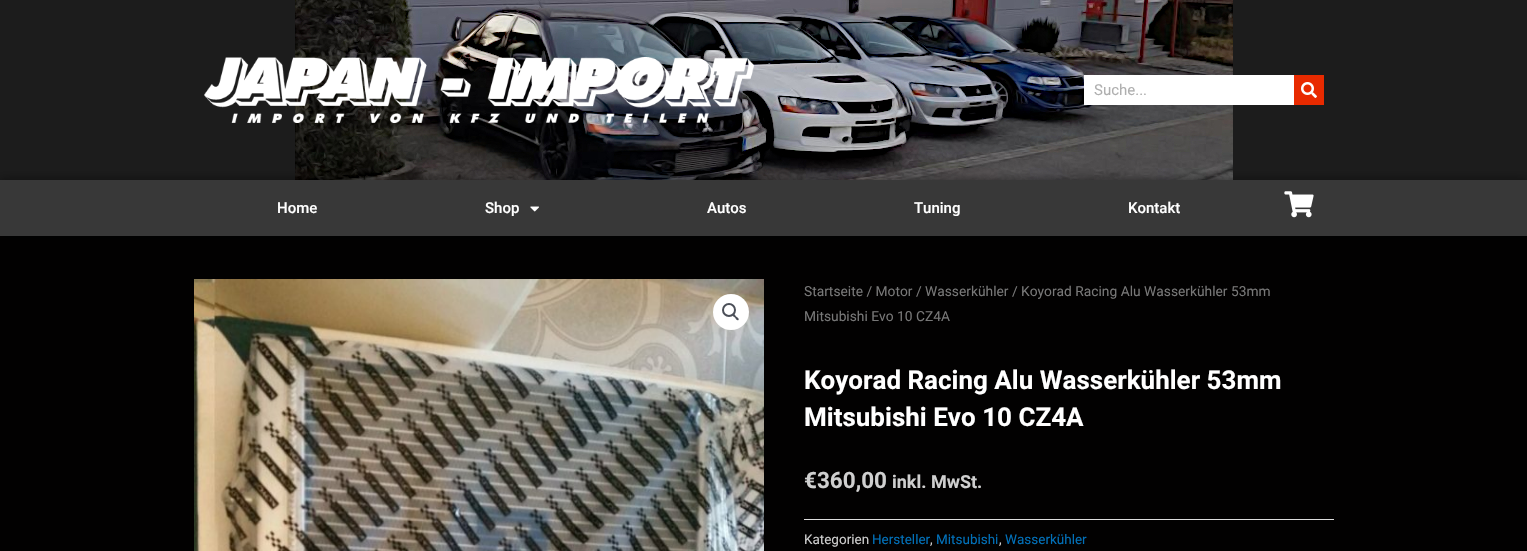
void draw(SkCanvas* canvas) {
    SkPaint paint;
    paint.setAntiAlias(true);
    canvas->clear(0xFF020101);
    paint.setColor(0xFF1C1C1C);
    canvas->drawRect(SkRect::MakeXYWH(0, 0, 1527, 180), paint);
    canvas->drawImageRect(SkImages::DeferredFromEncodedData(SkData::MakeFromFileName("img1.png")), SkRect::MakeXYWH(295, 0, 938, 180), SkSamplingOptions());
    canvas->drawImageRect(SkImages::DeferredFromEncodedData(SkData::MakeFromFileName("img2.png")), SkRect::MakeXYWH(204, 57, 550, 66), SkSamplingOptions());
    paint.setColor(0xFFFFFFFF);
    canvas->drawRect(SkRect::MakeXYWH(1084, 75, 210, 30), paint);
    SkFont font1(fontMgr->matchFamilyStyle("Roboto", SkFontStyle::Normal()), 15);
    font1.setSubpixel(true);
    paint.setColor(0xFFAFAFAF);
    canvas->drawString("Suche...", 1094, 95, font1, paint);
    paint.setColor(0xFFE82A00);
    canvas->drawRect(SkRect::MakeXYWH(1294, 75, 30, 30), paint);
    canvas->drawImageRect(SkImages::DeferredFromEncodedData(SkData::MakeFromFileName("img3.png")), SkRect::MakeXYWH(1301, 82, 16, 16), SkSamplingOptions());
    paint.setColor(0x80000000);
    paint.setMaskFilter(SkMaskFilter::MakeBlur(kNormal_SkBlurStyle, 5));
    canvas->drawRect(SkRect::MakeXYWH(0, 180, 1527, 59), paint);
    paint.setMaskFilter(nullptr);
    paint.setColor(0xFF383838);
    canvas->drawRect(SkRect::MakeXYWH(0, 180, 1527, 56), paint);
    SkFont font2(fontMgr->matchFamilyStyle("Roboto", SkFontStyle(500, SkFontStyle::kNormal_Width, SkFontStyle::kUpright_Slant)), 15);
    font2.setSubpixel(true);
    paint.setColor(0xFFFFFFFF);
    canvas->drawString("Home", 277, 213, font2, paint);
    canvas->drawString("Shop", 485, 213, font2, paint);
    canvas->drawImageRect(SkImages::DeferredFromEncodedData(SkData::MakeFromFileName("img4.png")), SkRect::MakeXYWH(530, 206, 9, 6), SkSamplingOptions());
    canvas->drawString("Autos", 707, 213, font2, paint);
    canvas->drawString("Tuning", 914, 213, font2, paint);
    canvas->drawString("Kontakt", 1128, 213, font2, paint);
    canvas->drawImageRect(SkImages::DeferredFromEncodedData(SkData::MakeFromFileName("img5.png")), SkRect::MakeXYWH(1284, 191, 30, 27), SkSamplingOptions());
    canvas->drawImageRect(SkImages::DeferredFromEncodedData(SkData::MakeFromFileName("img6.png")), SkRect::MakeXYWH(194, 279, 570, 272), SkSamplingOptions());
    canvas->drawCircle(731, 312, 18, paint);
    paint.setStyle(SkPaint::kStroke_Style);
    paint.setStrokeWidth(2);
    paint.setColor(0xFF4B4F58);
    canvas->drawCircle(729, 310, 6, paint);
    paint.setStyle(SkPaint::kFill_Style);
    canvas->drawPath(SkPathBuilder().moveTo(732.5f, 314).cubicTo(734, 313, 735.5f, 315.5f, 736, 316.5f).cubicTo(737, 317, 739.5f, 318.5f, 738.5f, 320).cubicTo(737, 321, 735.5f, 318.5f, 735, 317.5f).cubicTo(734, 317, 731.5f, 315.5f, 732.5f, 314).close().detach(), paint);
    SkFont font3(fontMgr->matchFamilyStyle("Roboto", SkFontStyle::Normal()), 13.8f);
    font3.setSubpixel(true);
    paint.setColor(0xFF777777);
    canvas->drawString("Startseite / Motor / Wasserkühler / Koyorad Racing Alu Wasserkühler 53mm", 804, 296, font3, paint);
    canvas->drawString("Mitsubishi Evo 10 CZ4A", 804, 321, font3, paint);
    SkFont font4(fontMgr->matchFamilyStyle("Roboto", SkFontStyle::Bold()), 26);
    font4.setSubpixel(true);
    paint.setColor(0xFFFFFFFF);
    canvas->drawString("Koyorad Racing Alu Wasserkühler 53mm", 804, 389, font4, paint);
    canvas->drawString("Mitsubishi Evo 10 CZ4A", 804, 426, font4, paint);
    SkFont font5(fontMgr->matchFamilyStyle("Roboto", SkFontStyle::Bold()), 22.5f);
    font5.setSubpixel(true);
    paint.setColor(0xFFCFCFCF);
    canvas->drawString("€360,00", 804, 488, font5, paint);
    SkFont font6(fontMgr->matchFamilyStyle("Roboto", SkFontStyle::Bold()), 18);
    font6.setSubpixel(true);
    canvas->drawString("inkl. MwSt.", 892, 488, font6, paint);
    paint.setColor(0xFFDDDDDD);
    canvas->drawRect(SkRect::MakeXYWH(804, 519, 530, 1), paint);
    SkFont font7(fontMgr->matchFamilyStyle("Roboto", SkFontStyle::Normal()), 13.5f);
    font7.setSubpixel(true);
    paint.setColor(0xFFCFCFCF);
    canvas->drawString("Kategorien", 804, 544, font7, paint);
    paint.setColor(0xFF0170B9);
    canvas->drawString("Hersteller", 872, 544, font7, paint);
    paint.setColor(0xFFCFCFCF);
    canvas->drawString(",", 930, 544, font7, paint);
    paint.setColor(0xFF0170B9);
    canvas->drawString("Mitsubishi", 936, 544, font7, paint);
    paint.setColor(0xFFCFCFCF);
    canvas->drawString(",", 999, 544, font7, paint);
    paint.setColor(0xFF0170B9);
    canvas->drawString("Wasserkühler", 1005, 544, font7, paint);
}
